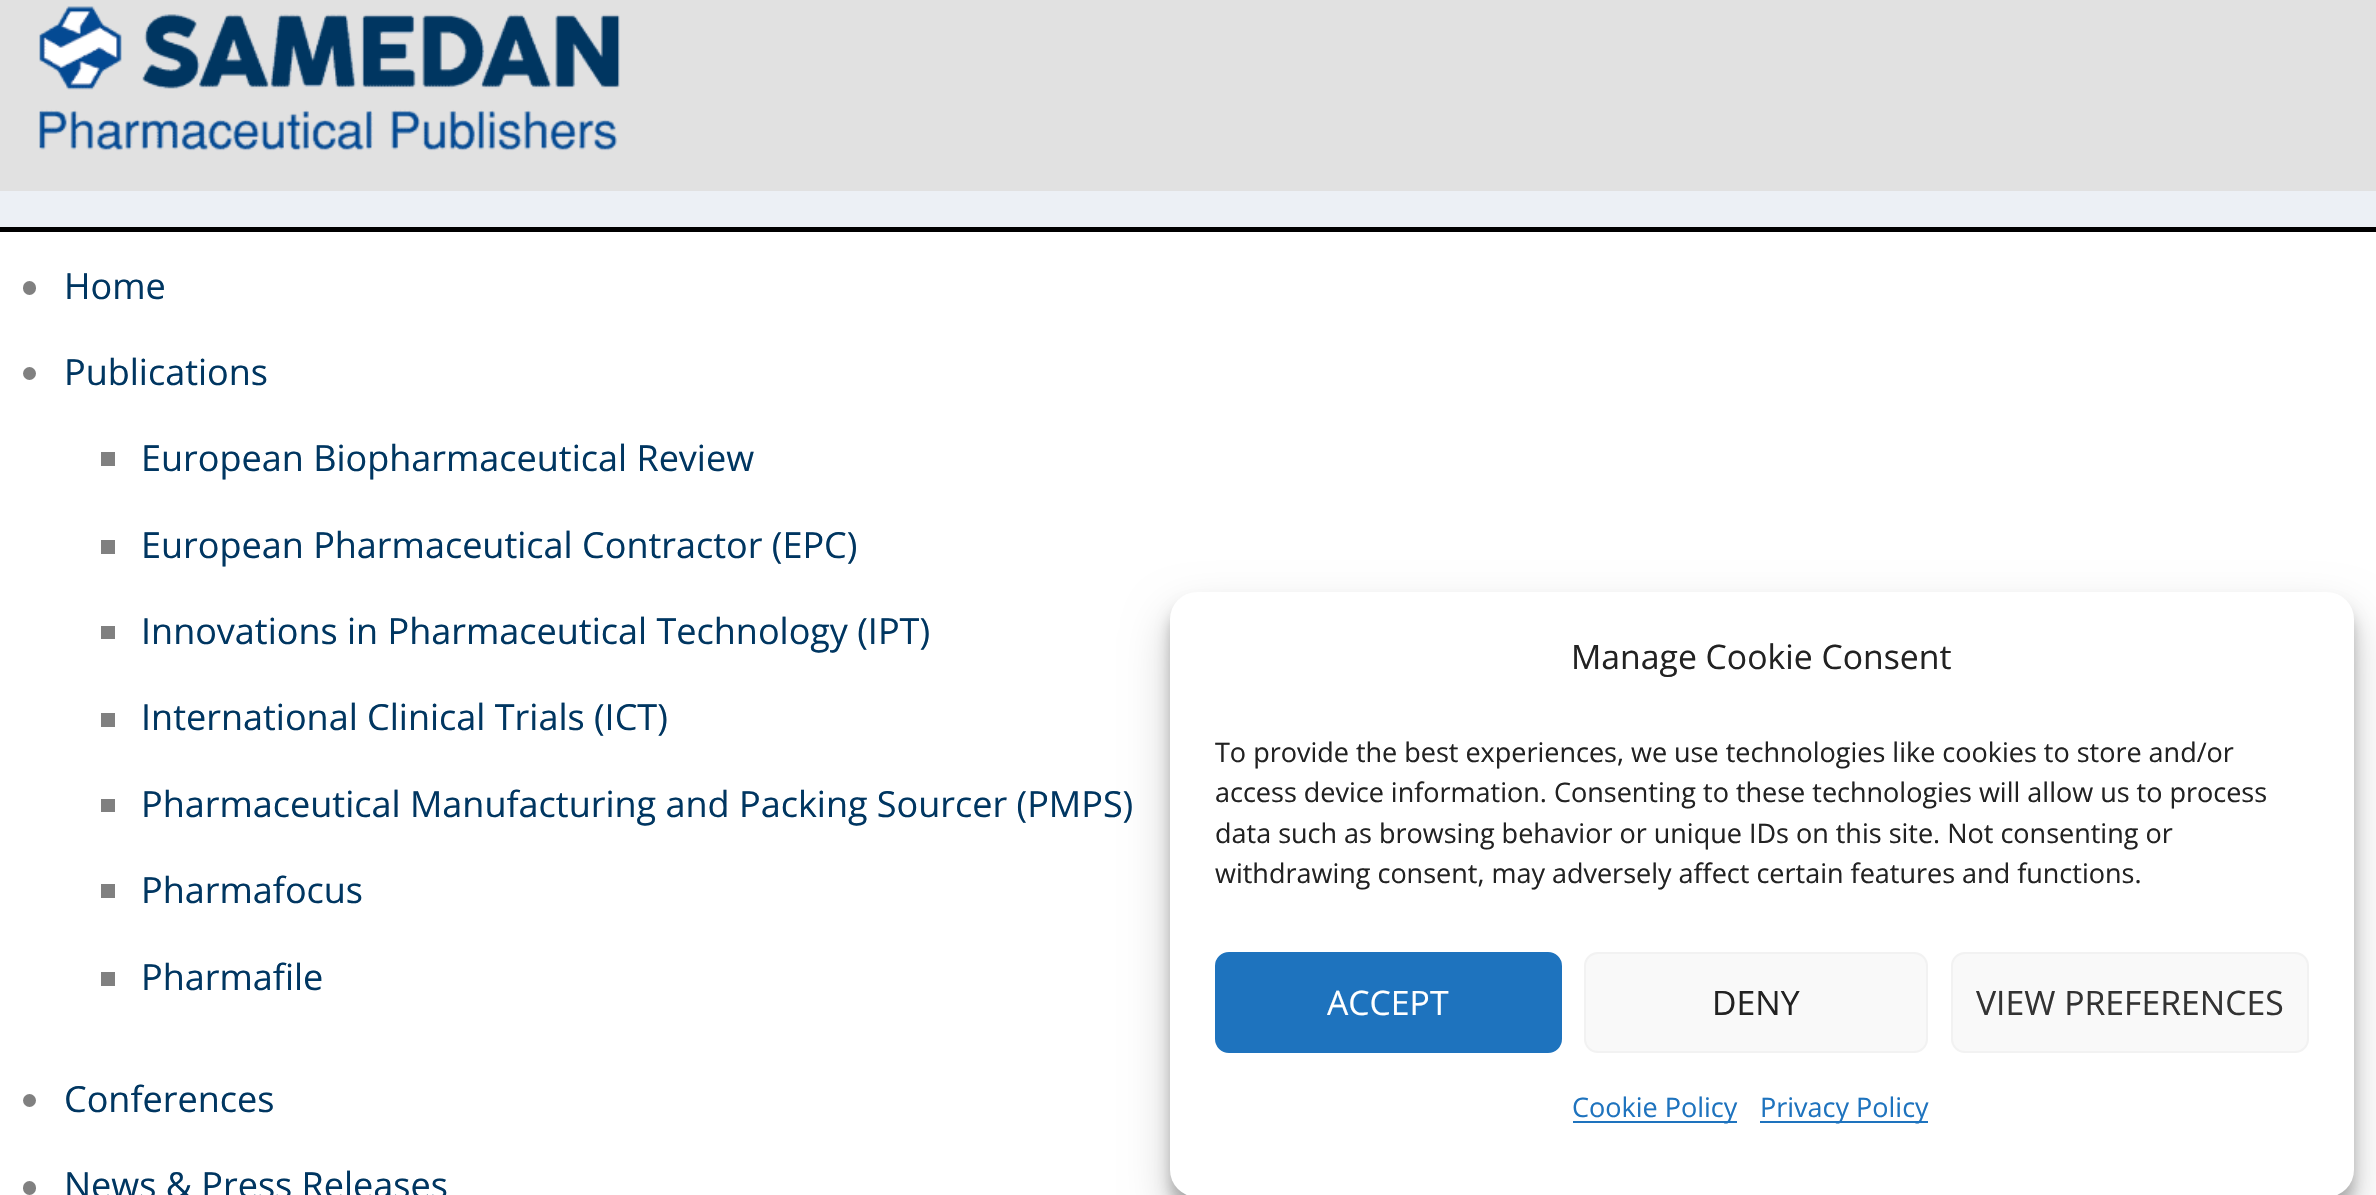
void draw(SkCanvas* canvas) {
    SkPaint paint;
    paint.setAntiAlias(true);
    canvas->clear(0xFFECF0F5);
    paint.setColor(0xFFE1E1E1);
    canvas->drawRect(SkRect::MakeXYWH(0, 0, 2376, 191), paint);
    canvas->drawImageRect(SkImages::DeferredFromEncodedData(SkData::MakeFromFileName("img1.png")), SkRect::MakeXYWH(39, 6, 581, 145), SkSamplingOptions());
    paint.setColor(0xFFFFFFFF);
    canvas->drawRect(SkRect::MakeXYWH(0, 232, 2376, 963), paint);
    paint.setColor(0xFF000000);
    canvas->drawRect(SkRect::MakeXYWH(0, 227, 2376, 5), paint);
    paint.setColor(0xFF808080);
    canvas->drawRoundRect(SkRect::MakeXYWH(23, 281, 13, 14), 6.5f, 6.5f, paint);
    SkFont font1(fontMgr->matchFamilyStyle("Open Sans", SkFontStyle::Normal()), 36);
    font1.setSubpixel(true);
    paint.setColor(0xFF003661);
    canvas->drawString("Home", 64, 299, font1, paint);
    paint.setColor(0xFF808080);
    canvas->drawCircle(29.5f, 373.5f, 6.5f, paint);
    paint.setColor(0xFF003661);
    canvas->drawString("Publications", 64, 385, font1, paint);
    paint.setColor(0xFF808080);
    canvas->drawRect(SkRect::MakeXYWH(101, 452, 14, 14), paint);
    paint.setColor(0xFF003661);
    canvas->drawString("European Biopharmaceutical Review", 141, 471, font1, paint);
    paint.setColor(0xFF808080);
    canvas->drawRect(SkRect::MakeXYWH(101, 540, 14, 14), paint);
    paint.setColor(0xFF003661);
    canvas->drawString("European Pharmaceutical Contractor (EPC)", 141, 558, font1, paint);
    paint.setColor(0xFF808080);
    canvas->drawRect(SkRect::MakeXYWH(101, 626, 14, 13), paint);
    paint.setColor(0xFF003661);
    canvas->drawString("Innovations in Pharmaceutical Technology (IPT)", 141, 644, font1, paint);
    paint.setColor(0xFF808080);
    canvas->drawRect(SkRect::MakeXYWH(101, 713, 14, 14), paint);
    paint.setColor(0xFF003661);
    canvas->drawString("International Clinical Trials (ICT)", 141, 730, font1, paint);
    paint.setColor(0xFF808080);
    canvas->drawRect(SkRect::MakeXYWH(101, 799, 14, 13), paint);
    paint.setColor(0xFF003661);
    canvas->drawString("Pharmaceutical Manufacturing and Packing Sourcer (PMPS)", 141, 817, font1, paint);
    paint.setColor(0xFF808080);
    canvas->drawRect(SkRect::MakeXYWH(101, 884, 14, 14), paint);
    paint.setColor(0xFF003661);
    canvas->drawString("Pharmafocus", 141, 903, font1, paint);
    paint.setColor(0xFF808080);
    canvas->drawRect(SkRect::MakeXYWH(101, 972, 14, 14), paint);
    paint.setColor(0xFF003661);
    canvas->drawString("Pharmafile", 141, 990, font1, paint);
    paint.setColor(0xFF808080);
    canvas->drawCircle(29.5f, 1100.5f, 6.5f, paint);
    paint.setColor(0xFF003661);
    canvas->drawString("Conferences", 64, 1112, font1, paint);
    paint.setColor(0xFF808080);
    canvas->drawRoundRect(SkRect::MakeXYWH(23, 1181, 13, 14), 6.5f, 6.5f, paint);
    paint.setColor(0xFF003661);
    canvas->drawString("News & Press Releases", 64, 1198, font1, paint);
    paint.setColor(0x3B000000);
    paint.setMaskFilter(SkMaskFilter::MakeBlur(kNormal_SkBlurStyle, 7));
    canvas->drawRoundRect(SkRect::MakeXYWH(1170, 605, 1184, 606), 27, 27, paint);
    paint.setMaskFilter(nullptr);
    paint.setColor(0x30000000);
    paint.setMaskFilter(SkMaskFilter::MakeBlur(kNormal_SkBlurStyle, 22.5f));
    canvas->drawRoundRect(SkRect::MakeXYWH(1170, 614, 1184, 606), 27, 27, paint);
    paint.setMaskFilter(nullptr);
    paint.setColor(0xFFFFFFFF);
    canvas->drawRoundRect(SkRect::MakeXYWH(1170, 592, 1184, 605), 27, 27, paint);
    SkFont font2(fontMgr->matchFamilyStyle("Open Sans", SkFontStyle::Normal()), 33.75f);
    font2.setSubpixel(true);
    paint.setColor(0xFF222222);
    canvas->drawString("Manage Cookie Consent", 1571, 669, font2, paint);
    SkFont font3(fontMgr->matchFamilyStyle("Open Sans", SkFontStyle::Normal()), 27);
    font3.setSubpixel(true);
    canvas->drawString("To provide the best experiences, we use technologies like cookies to store and/or", 1215, 762, font3, paint);
    canvas->drawString("access device information. Consenting to these technologies will allow us to process", 1215, 802, font3, paint);
    canvas->drawString("data such as browsing behavior or unique IDs on this site. Not consenting or", 1215, 843, font3, paint);
    canvas->drawString("withdrawing consent, may adversely affect certain features and functions.", 1215, 883, font3, paint);
    paint.setColor(0xFF1E73BE);
    canvas->drawRoundRect(SkRect::MakeXYWH(1216, 953, 345, 99), 13, 13, paint);
    paint.setStyle(SkPaint::kStroke_Style);
    paint.setStrokeWidth(2);
    canvas->drawRoundRect(SkRect::MakeXYWH(1216, 953, 345, 99), 13, 13, paint);
    paint.setStyle(SkPaint::kFill_Style);
    paint.setColor(0xFFFFFFFF);
    canvas->drawString("ACCEPT", 1327, 1015, font2, paint);
    paint.setColor(0xFFF9F9F9);
    canvas->drawRoundRect(SkRect::MakeXYWH(1585, 953, 342, 99), 13, 13, paint);
    paint.setStyle(SkPaint::kStroke_Style);
    paint.setColor(0xFFF2F2F2);
    canvas->drawRoundRect(SkRect::MakeXYWH(1585, 953, 342, 99), 13, 13, paint);
    paint.setStyle(SkPaint::kFill_Style);
    paint.setColor(0xFF222222);
    canvas->drawString("DENY", 1712, 1015, font2, paint);
    paint.setColor(0xFFF9F9F9);
    canvas->drawRoundRect(SkRect::MakeXYWH(1952, 953, 356, 99), 13, 13, paint);
    paint.setStyle(SkPaint::kStroke_Style);
    paint.setColor(0xFFF2F2F2);
    canvas->drawRoundRect(SkRect::MakeXYWH(1952, 953, 356, 99), 13, 13, paint);
    paint.setStyle(SkPaint::kFill_Style);
    paint.setColor(0xFF333333);
    canvas->drawString("VIEW PREFERENCES", 1976, 1015, font2, paint);
    paint.setColor(0xFF1E73BE);
    canvas->drawRect(SkRect::MakeXYWH(1573, 1121, 164, 2), paint);
    canvas->drawString("Cookie Policy", 1572, 1117, font3, paint);
    canvas->drawRect(SkRect::MakeXYWH(1760, 1121, 168, 2), paint);
    canvas->drawString("Privacy Policy", 1760, 1117, font3, paint);
}
